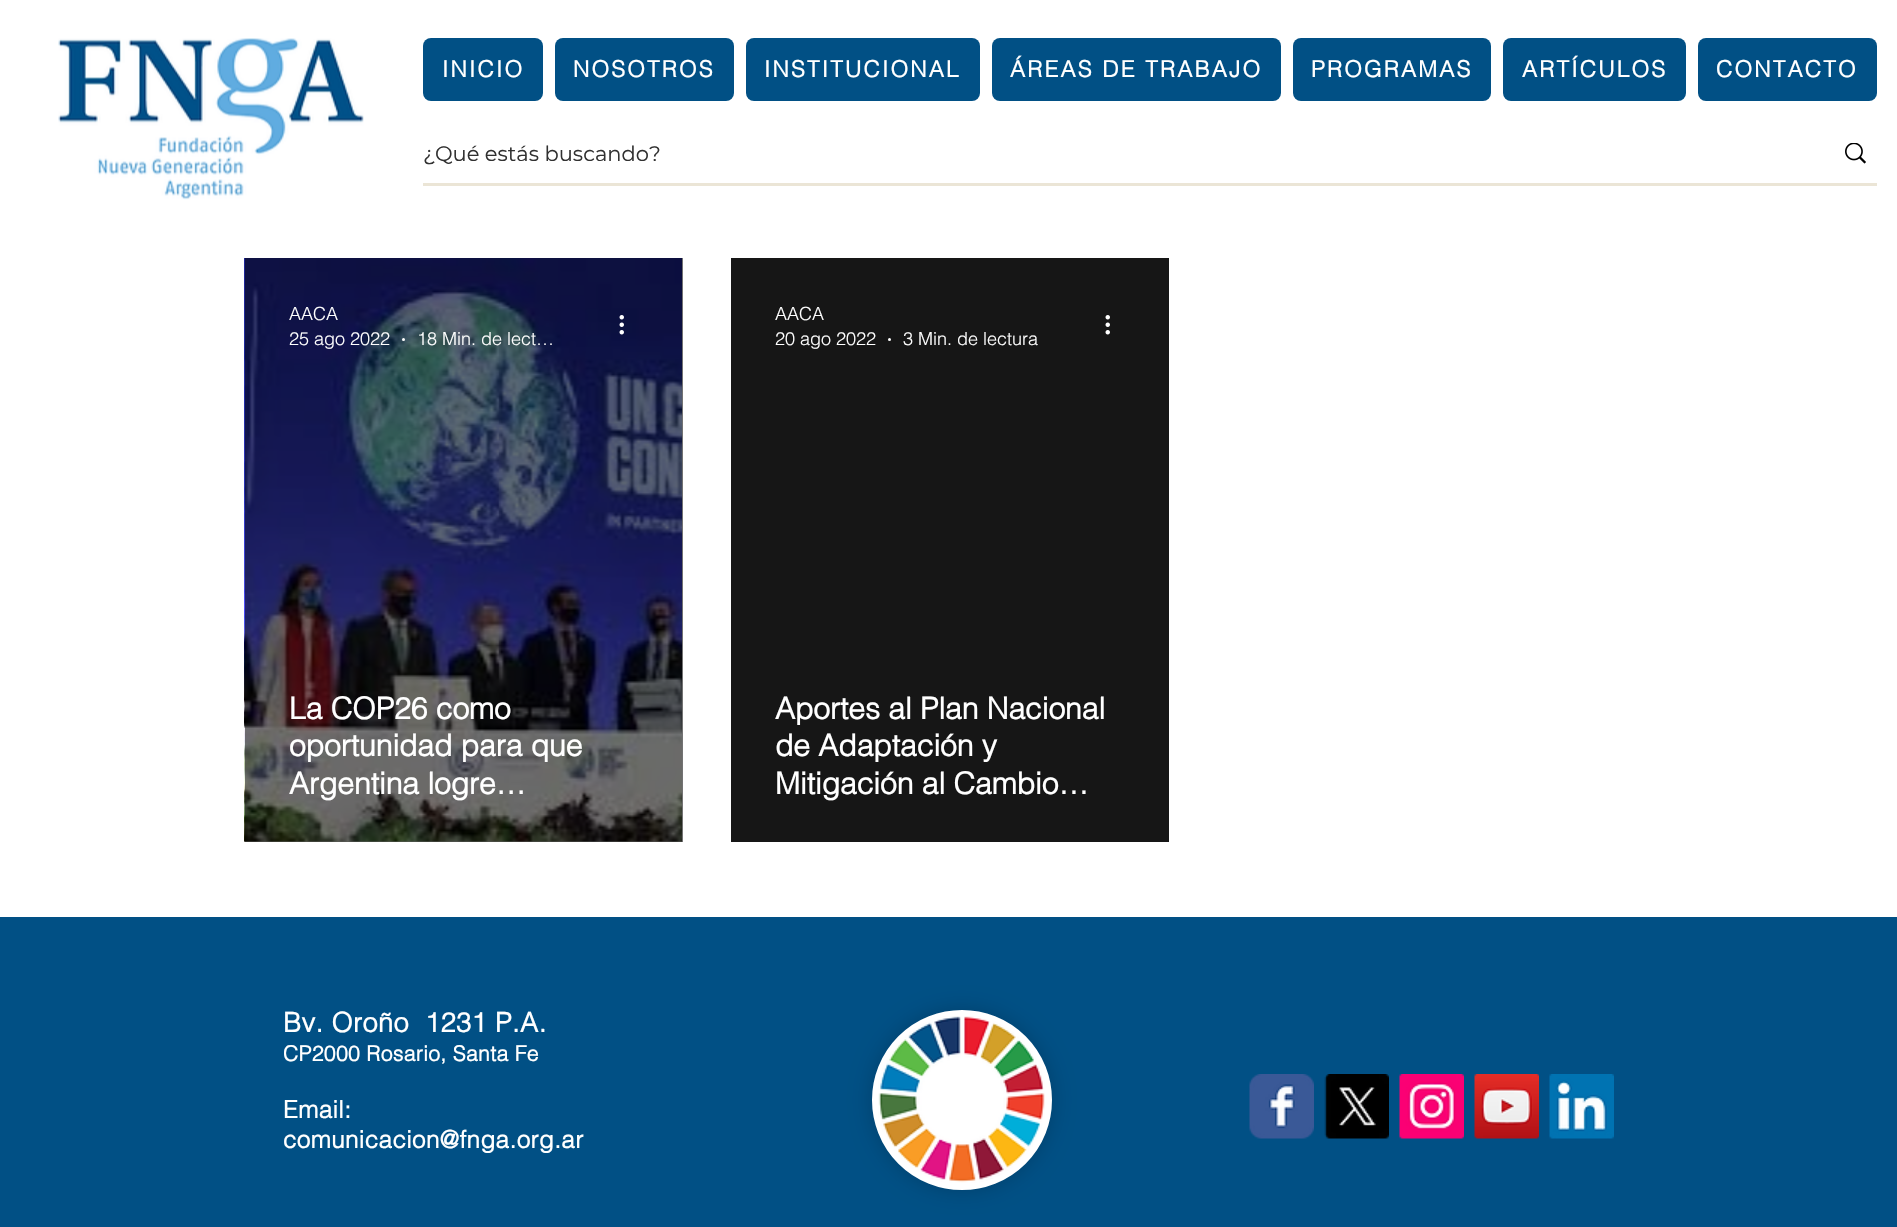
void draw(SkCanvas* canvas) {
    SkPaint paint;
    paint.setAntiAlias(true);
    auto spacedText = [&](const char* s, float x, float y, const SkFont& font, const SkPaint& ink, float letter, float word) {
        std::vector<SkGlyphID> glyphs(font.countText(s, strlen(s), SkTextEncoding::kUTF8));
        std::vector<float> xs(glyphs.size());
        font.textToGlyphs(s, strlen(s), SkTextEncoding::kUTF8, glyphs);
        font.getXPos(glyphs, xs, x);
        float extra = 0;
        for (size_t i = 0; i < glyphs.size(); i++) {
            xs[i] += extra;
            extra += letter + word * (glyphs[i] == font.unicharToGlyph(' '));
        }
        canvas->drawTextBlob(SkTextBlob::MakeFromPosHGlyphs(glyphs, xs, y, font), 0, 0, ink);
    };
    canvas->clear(0xFFFFFFFF);
    paint.setColor(0xFF737373);
    canvas->drawRect(SkRect::MakeXYWH(245, 258, 438, 584), paint);
    canvas->drawImageRect(SkImages::DeferredFromEncodedData(SkData::MakeFromFileName("img1.png")), SkRect::MakeXYWH(58, 38, 306, 162), SkSamplingOptions());
    paint.setColor(0xFF015085);
    canvas->drawRoundRect(SkRect::MakeXYWH(423, 38, 120, 63), 8, 8, paint);
    SkFont font1(fontMgr->matchFamilyStyle("helvetica", SkFontStyle::Bold()), 22.5f);
    font1.setSubpixel(true);
    paint.setColor(0xFFFFFFFF);
    spacedText("INICIO", 442, 77, font1, paint, 2.25f, 0);
    paint.setColor(0xFF015085);
    canvas->drawRoundRect(SkRect::MakeXYWH(555, 38, 179, 63), 8, 8, paint);
    paint.setColor(0xFFFFFFFF);
    spacedText("NOSOTROS", 573, 77, font1, paint, 2.25f, 0);
    paint.setColor(0xFF015085);
    canvas->drawRoundRect(SkRect::MakeXYWH(746, 38, 234, 63), 8, 8, paint);
    paint.setColor(0xFFFFFFFF);
    spacedText("INSTITUCIONAL", 764, 77, font1, paint, 2.25f, 0);
    paint.setColor(0xFF015085);
    canvas->drawRoundRect(SkRect::MakeXYWH(992, 38, 289, 63), 8, 8, paint);
    paint.setColor(0xFFFFFFFF);
    spacedText("ÁREAS DE TRABAJO", 1010, 77, font1, paint, 2.25f, 0);
    paint.setColor(0xFF015085);
    canvas->drawRoundRect(SkRect::MakeXYWH(1293, 38, 198, 63), 8, 8, paint);
    paint.setColor(0xFFFFFFFF);
    spacedText("PROGRAMAS", 1311, 77, font1, paint, 2.25f, 0);
    paint.setColor(0xFF015085);
    canvas->drawRoundRect(SkRect::MakeXYWH(1503, 38, 183, 63), 8, 8, paint);
    paint.setColor(0xFFFFFFFF);
    spacedText("ARTÍCULOS", 1522, 77, font1, paint, 2.25f, 0);
    paint.setColor(0xFF015085);
    canvas->drawRoundRect(SkRect::MakeXYWH(1698, 38, 179, 63), 8, 8, paint);
    paint.setColor(0xFFFFFFFF);
    spacedText("CONTACTO", 1716, 77, font1, paint, 2.25f, 0);
    paint.setColor(0xFFEBE5D6);
    canvas->drawRect(SkRect::MakeXYWH(423, 183, 1454, 3), paint);
    SkFont font2(fontMgr->matchFamilyStyle("Montserrat", SkFontStyle::Normal()), 21);
    font2.setSubpixel(true);
    paint.setColor(0xFF313131);
    canvas->drawString("¿Qué estás buscando?", 423, 161, font2, paint);
    canvas->drawImageRect(SkImages::DeferredFromEncodedData(SkData::MakeFromFileName("img2.png")), SkRect::MakeXYWH(1845, 143, 21, 21), SkSamplingOptions());
    canvas->drawImageRect(SkImages::DeferredFromEncodedData(SkData::MakeFromFileName("img4.png")), SkRect::MakeXYWH(244, 841, 438, 1), SkSamplingOptions());
    canvas->drawImageRect(SkImages::DeferredFromEncodedData(SkData::MakeFromFileName("img3.png")), SkRect::MakeXYWH(244, 258, 438, 584), SkSamplingOptions());
    SkFont font3(fontMgr->matchFamilyStyle("helvetica", SkFontStyle(300, SkFontStyle::kNormal_Width, SkFontStyle::kUpright_Slant)), 18);
    font3.setSubpixel(true);
    paint.setColor(0xFFFFFFFF);
    canvas->drawString("AACA", 289, 320, font3, paint);
    canvas->drawString("25 ago 2022", 289, 345, font3, paint);
    canvas->drawCircle(403.5f, 339.5f, 1.5f, paint);
    canvas->drawString("18 Min. de lect…", 417, 345, font3, paint);
    canvas->drawImageRect(SkImages::DeferredFromEncodedData(SkData::MakeFromFileName("img5.png")), SkRect::MakeXYWH(619, 315, 5, 20), SkSamplingOptions());
    SkFont font4(fontMgr->matchFamilyStyle("helvetica", SkFontStyle::Bold()), 30);
    font4.setSubpixel(true);
    canvas->drawString("La COP26 como", 289, 719, font4, paint);
    canvas->drawString("oportunidad para que", 289, 756, font4, paint);
    canvas->drawString("Argentina logre…", 289, 794, font4, paint);
    paint.setColor(0xFF161616);
    canvas->drawRect(SkRect::MakeXYWH(731, 258, 438, 584), paint);
    paint.setColor(0xFFFFFFFF);
    canvas->drawString("AACA", 775, 320, font3, paint);
    canvas->drawString("20 ago 2022", 775, 345, font3, paint);
    canvas->drawCircle(889.5f, 339.5f, 1.5f, paint);
    canvas->drawString("3 Min. de lectura", 903, 345, font3, paint);
    canvas->drawImageRect(SkImages::DeferredFromEncodedData(SkData::MakeFromFileName("img6.png")), SkRect::MakeXYWH(1105, 315, 5, 20), SkSamplingOptions());
    canvas->drawString("Aportes al Plan Nacional", 775, 719, font4, paint);
    canvas->drawString("de Adaptación y", 775, 756, font4, paint);
    canvas->drawString("Mitigación al Cambio…", 775, 794, font4, paint);
    paint.setColor(0xFF015085);
    canvas->drawRect(SkRect::MakeXYWH(0, 917, 1897, 310), paint);
    SkFont font5(fontMgr->matchFamilyStyle("helvetica", SkFontStyle::Bold()), 27);
    font5.setSubpixel(true);
    paint.setColor(0xFFFFFFFF);
    spacedText("Bv. Oroño  1231 P.A.", 283, 1032, font5, paint, 0.5f, 0);
    SkFont font6(fontMgr->matchFamilyStyle("helvetica", SkFontStyle::Bold()), 21);
    font6.setSubpixel(true);
    spacedText("CP2000 Rosario, Santa Fe", 283, 1061, font6, paint, 0.4f, 0);
    SkFont font7(fontMgr->matchFamilyStyle("helvetica", SkFontStyle::Bold()), 24);
    font7.setSubpixel(true);
    spacedText("Email:", 283, 1118, font7, paint, 0.5f, 0);
    spacedText("comunicacion@fnga.org.ar", 283, 1148, font7, paint, 0.5f, 0);
    paint.setColor(0x33000000);
    paint.setMaskFilter(SkMaskFilter::MakeBlur(kNormal_SkBlurStyle, 10.5f));
    canvas->drawRoundRect(SkRect::MakeXYWH(872, 1010, 180, 180), 90, 90, paint);
    paint.setMaskFilter(nullptr);
    paint.setColor(0xFFFFFFFF);
    canvas->drawCircle(962, 1100, 87.5f, paint);
    paint.setStyle(SkPaint::kStroke_Style);
    paint.setStrokeWidth(5);
    canvas->drawCircle(962, 1100, 87.5f, paint);
    canvas->drawImageRect(SkImages::DeferredFromEncodedData(SkData::MakeFromFileName("img7.png")), SkRect::MakeXYWH(878, 1016, 167, 167), SkSamplingOptions());
    canvas->drawImageRect(SkImages::DeferredFromEncodedData(SkData::MakeFromFileName("img8.png")), SkRect::MakeXYWH(1249, 1074, 65, 65), SkSamplingOptions());
    canvas->drawImageRect(SkImages::DeferredFromEncodedData(SkData::MakeFromFileName("img9.png")), SkRect::MakeXYWH(1324, 1074, 65, 65), SkSamplingOptions());
    canvas->drawImageRect(SkImages::DeferredFromEncodedData(SkData::MakeFromFileName("img10.png")), SkRect::MakeXYWH(1399, 1074, 65, 65), SkSamplingOptions());
    canvas->drawImageRect(SkImages::DeferredFromEncodedData(SkData::MakeFromFileName("img11.png")), SkRect::MakeXYWH(1474, 1074, 65, 65), SkSamplingOptions());
    canvas->drawImageRect(SkImages::DeferredFromEncodedData(SkData::MakeFromFileName("img12.png")), SkRect::MakeXYWH(1549, 1074, 65, 65), SkSamplingOptions());
}
